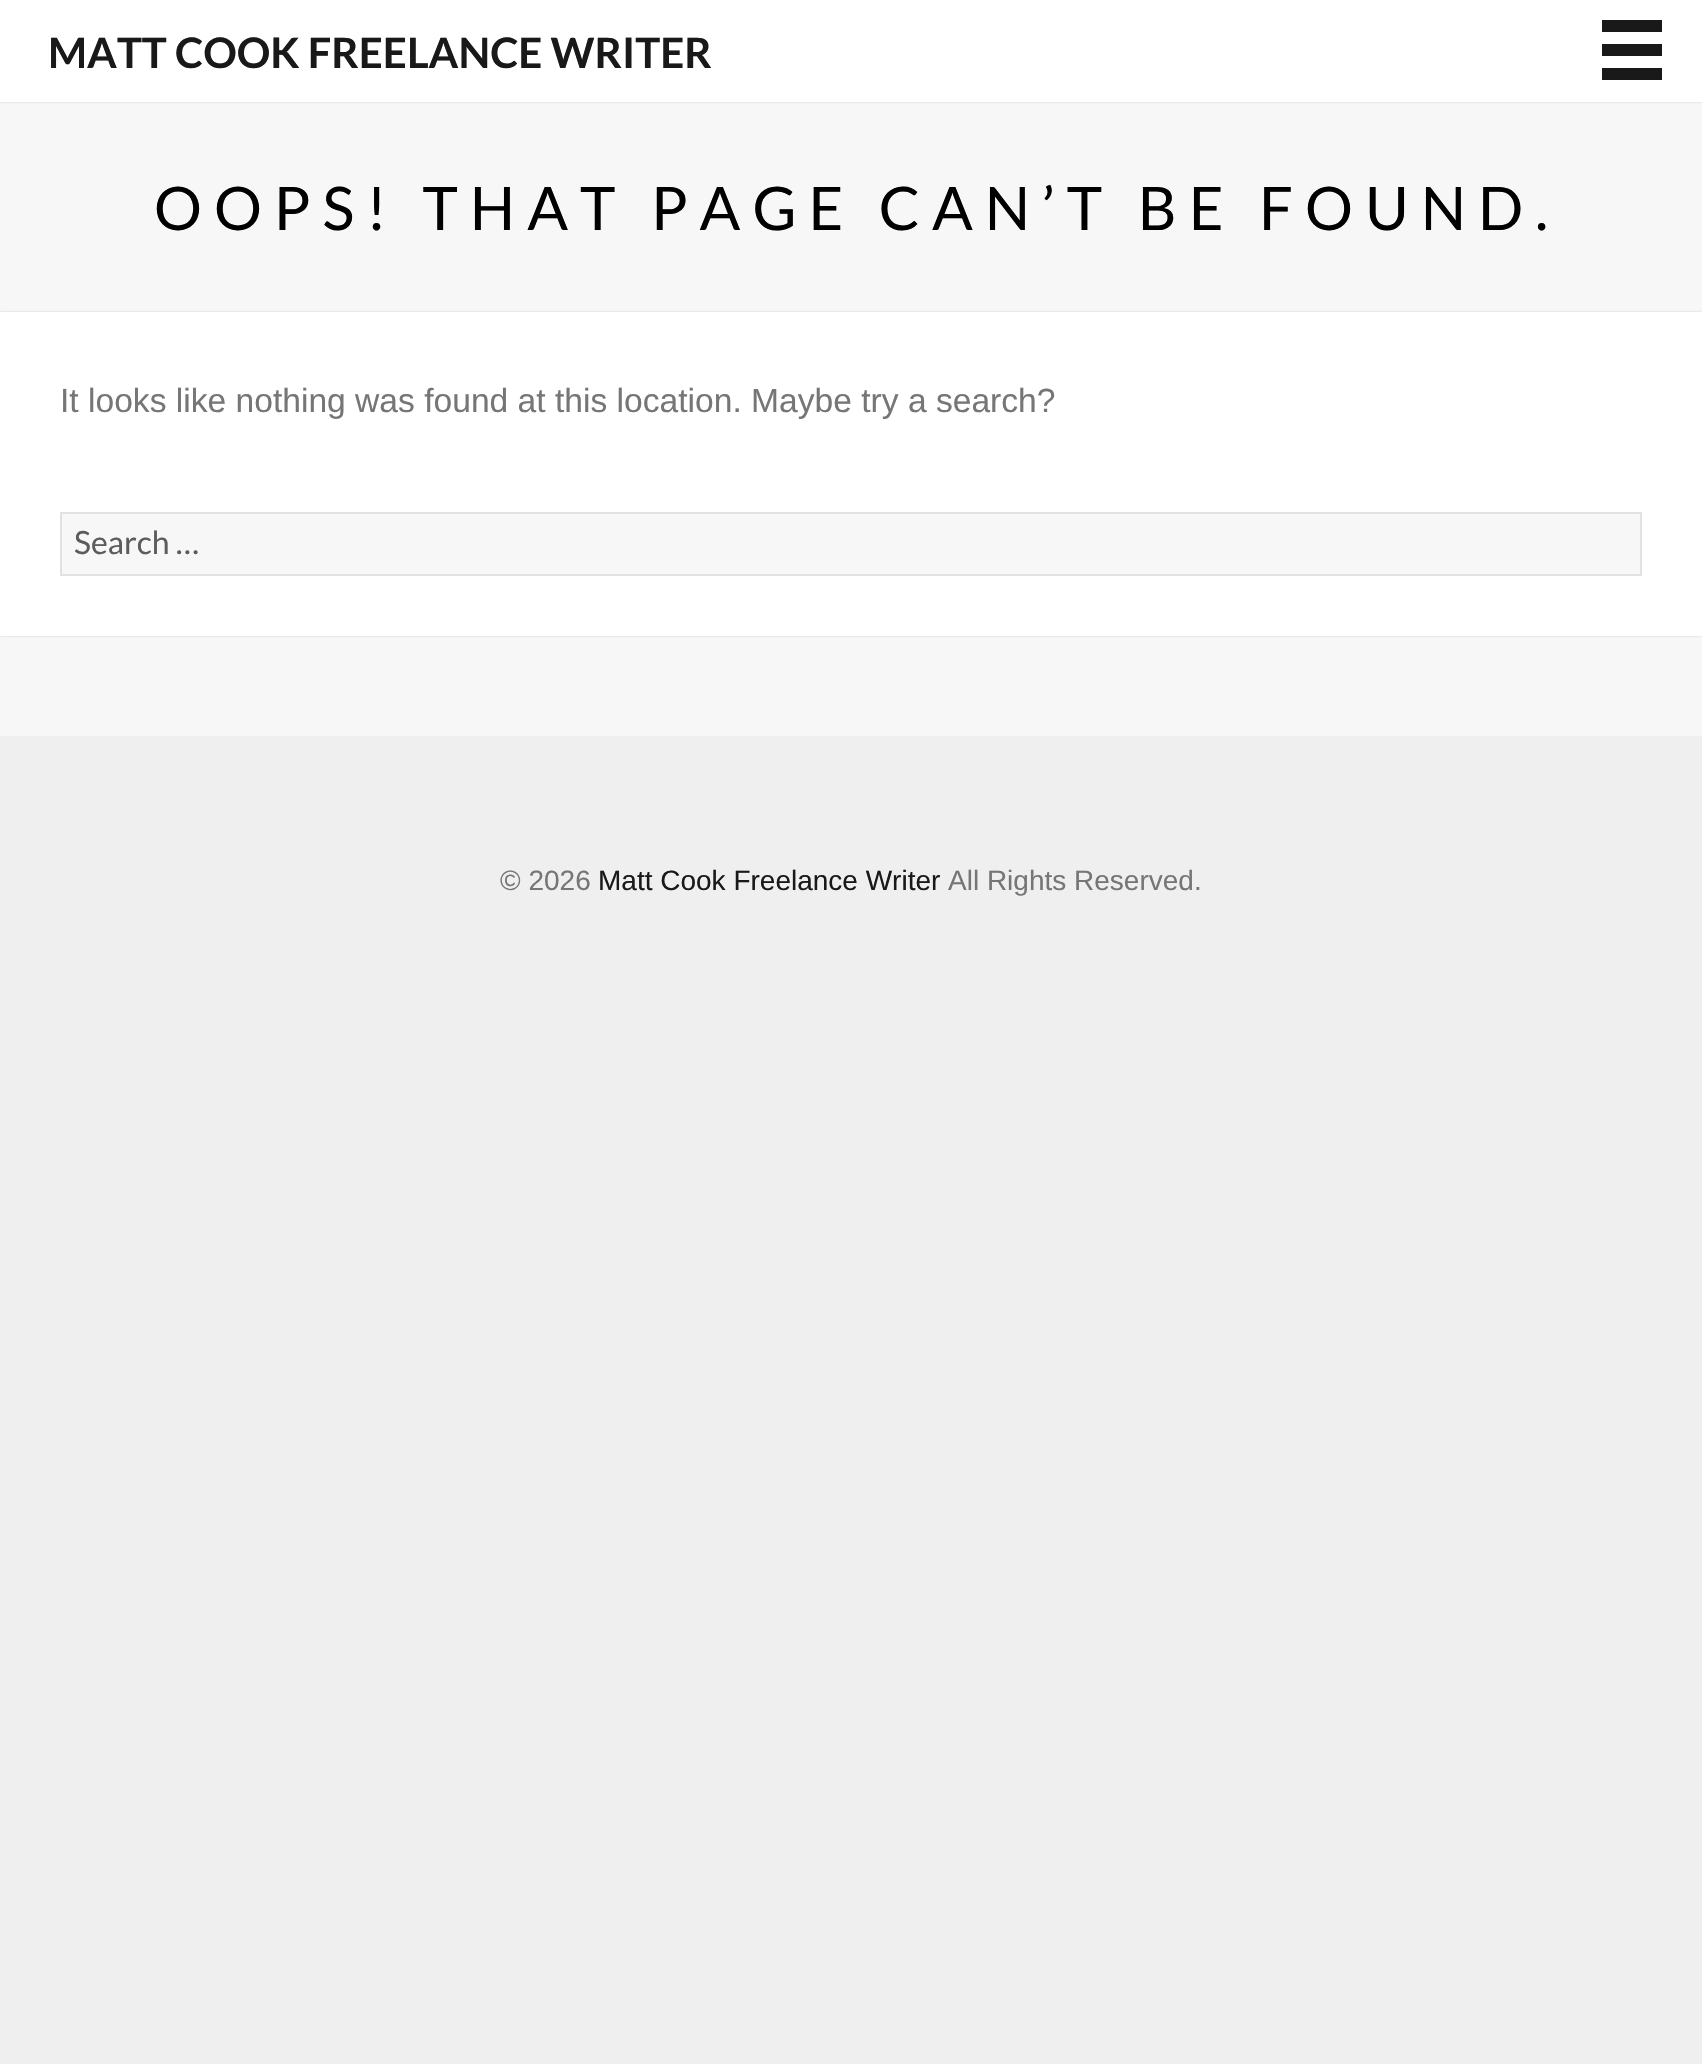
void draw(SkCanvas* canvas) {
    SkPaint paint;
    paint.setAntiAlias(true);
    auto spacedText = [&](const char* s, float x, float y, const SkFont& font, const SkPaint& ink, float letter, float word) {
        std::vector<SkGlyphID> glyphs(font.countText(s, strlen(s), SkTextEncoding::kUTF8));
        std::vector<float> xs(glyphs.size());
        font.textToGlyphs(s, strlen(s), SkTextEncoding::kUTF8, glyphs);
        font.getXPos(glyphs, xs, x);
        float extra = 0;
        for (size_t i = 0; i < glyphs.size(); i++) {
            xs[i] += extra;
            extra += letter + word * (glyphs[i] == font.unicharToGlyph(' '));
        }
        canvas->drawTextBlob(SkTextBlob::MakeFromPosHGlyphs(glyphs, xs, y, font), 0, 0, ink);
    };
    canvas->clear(0xFFEFEFEF);
    paint.setColor(0xFFF7F7F7);
    canvas->drawRect(SkRect::MakeXYWH(0, 102, 1702, 634), paint);
    paint.setColor(0x26000000);
    paint.setMaskFilter(SkMaskFilter::MakeBlur(kNormal_SkBlurStyle, 1));
    canvas->drawRect(SkRect::MakeXYWH(0, 0, 1702, 102), paint);
    paint.setMaskFilter(nullptr);
    paint.setColor(0xFFFFFFFF);
    canvas->drawRect(SkRect::MakeXYWH(0, 0, 1702, 102), paint);
    SkFont font1(fontMgr->matchFamilyStyle("Lato", SkFontStyle::Bold()), 42);
    font1.setSubpixel(true);
    paint.setColor(0xFF191919);
    canvas->drawString("MATT COOK FREELANCE WRITER", 48, 68, font1, paint);
    canvas->drawRect(SkRect::MakeXYWH(1602, 44, 60, 12), paint);
    canvas->drawRect(SkRect::MakeXYWH(1602, 20, 60, 12), paint);
    canvas->drawRect(SkRect::MakeXYWH(1602, 68, 60, 12), paint);
    SkFont font2(fontMgr->matchFamilyStyle("Lato", SkFontStyle::Normal()), 60);
    font2.setSubpixel(true);
    paint.setColor(0xFF000000);
    spacedText("OOPS! THAT PAGE CAN’T BE FOUND.", 154, 230, font2, paint, 12, 0);
    paint.setColor(0x26000000);
    paint.setMaskFilter(SkMaskFilter::MakeBlur(kNormal_SkBlurStyle, 1));
    canvas->drawRect(SkRect::MakeXYWH(0, 312, 1702, 324), paint);
    paint.setMaskFilter(nullptr);
    paint.setColor(0xFFFFFFFF);
    canvas->drawRect(SkRect::MakeXYWH(0, 312, 1702, 324), paint);
    SkFont font3(fontMgr->matchFamilyStyle("Liberation Sans", SkFontStyle::Normal()), 33.6f);
    font3.setSubpixel(true);
    paint.setColor(0xFF767676);
    canvas->drawString("It looks like nothing was found at this location. Maybe try a search?", 60, 412, font3, paint);
    paint.setColor(0xFFF7F7F7);
    canvas->drawRect(SkRect::MakeXYWH(61, 513, 1580, 62), paint);
    paint.setStyle(SkPaint::kStroke_Style);
    paint.setStrokeWidth(2);
    paint.setColor(0xFFE1E1E1);
    canvas->drawRect(SkRect::MakeXYWH(61, 513, 1580, 62), paint);
    SkFont font4(fontMgr->matchFamilyStyle("Lato", SkFontStyle::Normal()), 32);
    font4.setSubpixel(true);
    paint.setStyle(SkPaint::kFill_Style);
    paint.setColor(0xFF5C5C5C);
    canvas->drawString("Search …", 74, 554, font4, paint);
    SkFont font5(fontMgr->matchFamilyStyle("Liberation Sans", SkFontStyle::Normal()), 28);
    font5.setSubpixel(true);
    paint.setColor(0xFF767676);
    canvas->drawString("© 2026", 500, 890, font5, paint);
    paint.setColor(0xFF191919);
    canvas->drawString("Matt Cook Freelance Writer", 598, 890, font5, paint);
    paint.setColor(0xFF767676);
    canvas->drawString("All Rights Reserved.", 948, 890, font5, paint);
}
